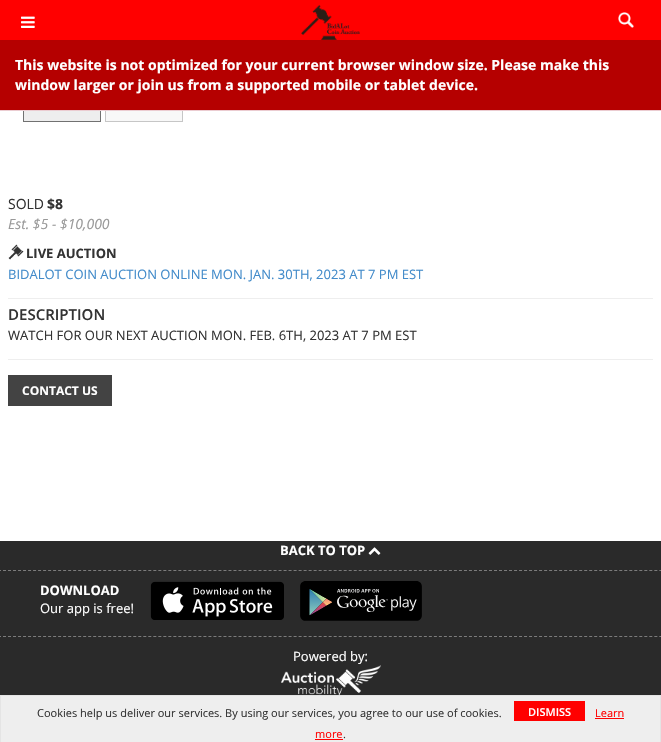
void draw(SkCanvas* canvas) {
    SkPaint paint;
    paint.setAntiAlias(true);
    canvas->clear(0xFFFFFFFF);
    paint.setColor(0xFFFF0000);
    canvas->drawRect(SkRect::MakeXYWH(0, 0, 661, 40), paint);
    canvas->drawImageRect(SkImages::DeferredFromEncodedData(SkData::MakeFromFileName("img1.png")), SkRect::MakeXYWH(21, 16, 14, 12), SkSamplingOptions());
    canvas->drawImageRect(SkImages::DeferredFromEncodedData(SkData::MakeFromFileName("img2.png")), SkRect::MakeXYWH(301, 5, 59, 35), SkSamplingOptions());
    canvas->drawImageRect(SkImages::DeferredFromEncodedData(SkData::MakeFromFileName("img3.png")), SkRect::MakeXYWH(618, 12, 16, 16), SkSamplingOptions());
    paint.setStyle(SkPaint::kStroke_Style);
    paint.setStrokeWidth(1);
    paint.setColor(0xFF717171);
    canvas->drawRect(SkRect::MakeXYWH(23.5f, 44.5f, 77, 77), paint);
    paint.setColor(0xFFC6C6C6);
    canvas->drawRect(SkRect::MakeXYWH(105.5f, 44.5f, 77, 77), paint);
    paint.setStyle(SkPaint::kFill_Style);
    paint.setColor(0xFFB50000);
    canvas->drawRect(SkRect::MakeXYWH(0, 40, 661, 70), paint);
    paint.setColor(0xFFEBCCD1);
    canvas->drawRect(SkRect::MakeXYWH(0, 110, 661, 1), paint);
    SkFont font1(fontMgr->matchFamilyStyle("Open Sans", SkFontStyle::Bold()), 14);
    font1.setSubpixel(true);
    paint.setColor(0xFFFFFFFF);
    canvas->drawString("This website is not optimized for your current browser window size. Please make this", 15, 70, font1, paint);
    canvas->drawString("window larger or join us from a supported mobile or tablet device.", 15, 90, font1, paint);
    canvas->drawImageRect(SkImages::DeferredFromEncodedData(SkData::MakeFromFileName("img4.png")), SkRect::MakeXYWH(24, 111, 76, 10), SkSamplingOptions());
    canvas->drawImageRect(SkImages::DeferredFromEncodedData(SkData::MakeFromFileName("img5.png")), SkRect::MakeXYWH(106, 111, 76, 10), SkSamplingOptions());
    SkFont font2(fontMgr->matchFamilyStyle("Open Sans", SkFontStyle::Normal()), 14);
    font2.setSubpixel(true);
    paint.setColor(0xFF333333);
    canvas->drawString("SOLD", 8, 209, font2, paint);
    canvas->drawString("$8", 47, 209, font1, paint);
    SkFont font3(fontMgr->matchFamilyStyle("Open Sans", SkFontStyle::Italic()), 14);
    font3.setSubpixel(true);
    paint.setColor(0xFF999999);
    canvas->drawString("Est. $5 - $10,000", 8, 229, font3, paint);
    canvas->drawImageRect(SkImages::DeferredFromEncodedData(SkData::MakeFromFileName("img6.png")), SkRect::MakeXYWH(8, 244, 16, 16), SkSamplingOptions());
    SkFont font4(fontMgr->matchFamilyStyle("Open Sans", SkFontStyle::Bold()), 13);
    font4.setSubpixel(true);
    paint.setColor(0xFF333333);
    canvas->drawString("LIVE AUCTION", 26, 258, font4, paint);
    SkFont font5(fontMgr->matchFamilyStyle("Open Sans", SkFontStyle::Normal()), 13);
    font5.setSubpixel(true);
    paint.setColor(0xFF428BCA);
    canvas->drawString("BIDALOT COIN AUCTION ONLINE MON. JAN. 30TH, 2023 AT 7 PM EST", 8, 279, font5, paint);
    paint.setColor(0xFFEEEEEE);
    canvas->drawRect(SkRect::MakeXYWH(8, 298, 645, 1), paint);
    SkFont font6(fontMgr->matchFamilyStyle("Open Sans", SkFontStyle(600, SkFontStyle::kNormal_Width, SkFontStyle::kUpright_Slant)), 15);
    font6.setSubpixel(true);
    paint.setColor(0xFF333333);
    canvas->drawString("DESCRIPTION", 8, 320, font6, paint);
    canvas->drawString("WATCH FOR OUR NEXT AUCTION MON. FEB. 6TH, 2023 AT 7 PM EST", 8, 340, font5, paint);
    paint.setColor(0xFFEEEEEE);
    canvas->drawRect(SkRect::MakeXYWH(8, 359, 645, 1), paint);
    paint.setColor(0xFF434343);
    canvas->drawRect(SkRect::MakeXYWH(8, 375, 104, 31), paint);
    SkFont font7(fontMgr->matchFamilyStyle("Open Sans", SkFontStyle::Bold()), 12);
    font7.setSubpixel(true);
    paint.setColor(0xFFFFFFFF);
    canvas->drawString("CONTACT US", 22, 395, font7, paint);
    paint.setColor(0xFF2A2A2A);
    canvas->drawRect(SkRect::MakeXYWH(0, 541, 661, 154), paint);
    paint.setStyle(SkPaint::kStroke_Style);
    paint.setColor(0xFF7C7C7C);
    paint.setPathEffect(SkDashPathEffect::Make({{3, 2.01f}}, 0));
    canvas->drawPath(SkPathBuilder().moveTo(-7, 570.5f).lineTo(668, 570.5f).detach(), paint);
    paint.setPathEffect(nullptr);
    paint.setStyle(SkPaint::kFill_Style);
    paint.setColor(0xFFFFFFFF);
    canvas->drawString("BACK TO TOP", 280, 555, font4, paint);
    canvas->drawImageRect(SkImages::DeferredFromEncodedData(SkData::MakeFromFileName("img7.png")), SkRect::MakeXYWH(368, 547, 13, 8), SkSamplingOptions());
    paint.setStyle(SkPaint::kStroke_Style);
    paint.setColor(0xFF7C7C7C);
    paint.setPathEffect(SkDashPathEffect::Make({{3, 2.01f}}, 0));
    canvas->drawPath(SkPathBuilder().moveTo(-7, 636.5f).lineTo(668, 636.5f).detach(), paint);
    paint.setPathEffect(nullptr);
    paint.setStyle(SkPaint::kFill_Style);
    paint.setColor(0xFFFFFFFF);
    canvas->drawString("DOWNLOAD", 40, 595, font4, paint);
    canvas->drawString("Our app is free!", 40, 613, font5, paint);
    canvas->drawImageRect(SkImages::DeferredFromEncodedData(SkData::MakeFromFileName("img8.png")), SkRect::MakeXYWH(150, 581, 134, 39), SkSamplingOptions());
    canvas->drawImageRect(SkImages::DeferredFromEncodedData(SkData::MakeFromFileName("img9.png")), SkRect::MakeXYWH(300, 581, 122, 40), SkSamplingOptions());
    canvas->drawString("Powered by:", 293, 661, font5, paint);
    canvas->drawImageRect(SkImages::DeferredFromEncodedData(SkData::MakeFromFileName("img10.png")), SkRect::MakeXYWH(281, 665, 100, 30), SkSamplingOptions());
    paint.setColor(0xFFEEEEEE);
    canvas->drawRect(SkRect::MakeXYWH(1, 696, 659, 46), paint);
    paint.setColor(0xFFE4E4E4);
    canvas->drawRect(SkRect::MakeXYWH(0, 695, 661, 1), paint);
    canvas->drawRect(SkRect::MakeXYWH(660, 695, 1, 47), paint);
    canvas->drawRect(SkRect::MakeXYWH(0, 695, 1, 47), paint);
    SkFont font8(fontMgr->matchFamilyStyle("Open Sans", SkFontStyle::Normal()), 11);
    font8.setSubpixel(true);
    paint.setColor(0xFF333333);
    canvas->drawString("Cookies help us deliver our services. By using our services, you agree to our use of cookies.", 37, 717, font8, paint);
    paint.setColor(0xFFFF0000);
    canvas->drawRect(SkRect::MakeXYWH(514, 701, 71, 20), paint);
    SkFont font9(fontMgr->matchFamilyStyle("Open Sans", SkFontStyle(600, SkFontStyle::kNormal_Width, SkFontStyle::kUpright_Slant)), 11);
    font9.setSubpixel(true);
    paint.setColor(0xFFFFFFFF);
    canvas->drawString("DISMISS", 528, 716, font9, paint);
    paint.setColor(0xFFFF0000);
    canvas->drawString("Learn", 595, 717, font8, paint);
    canvas->drawRect(SkRect::MakeXYWH(595, 718, 29, 1), paint);
    canvas->drawString("more", 315, 738, font8, paint);
    canvas->drawRect(SkRect::MakeXYWH(315, 739, 28, 1), paint);
    paint.setColor(0xFF333333);
    canvas->drawString(".", 343, 738, font8, paint);
}
